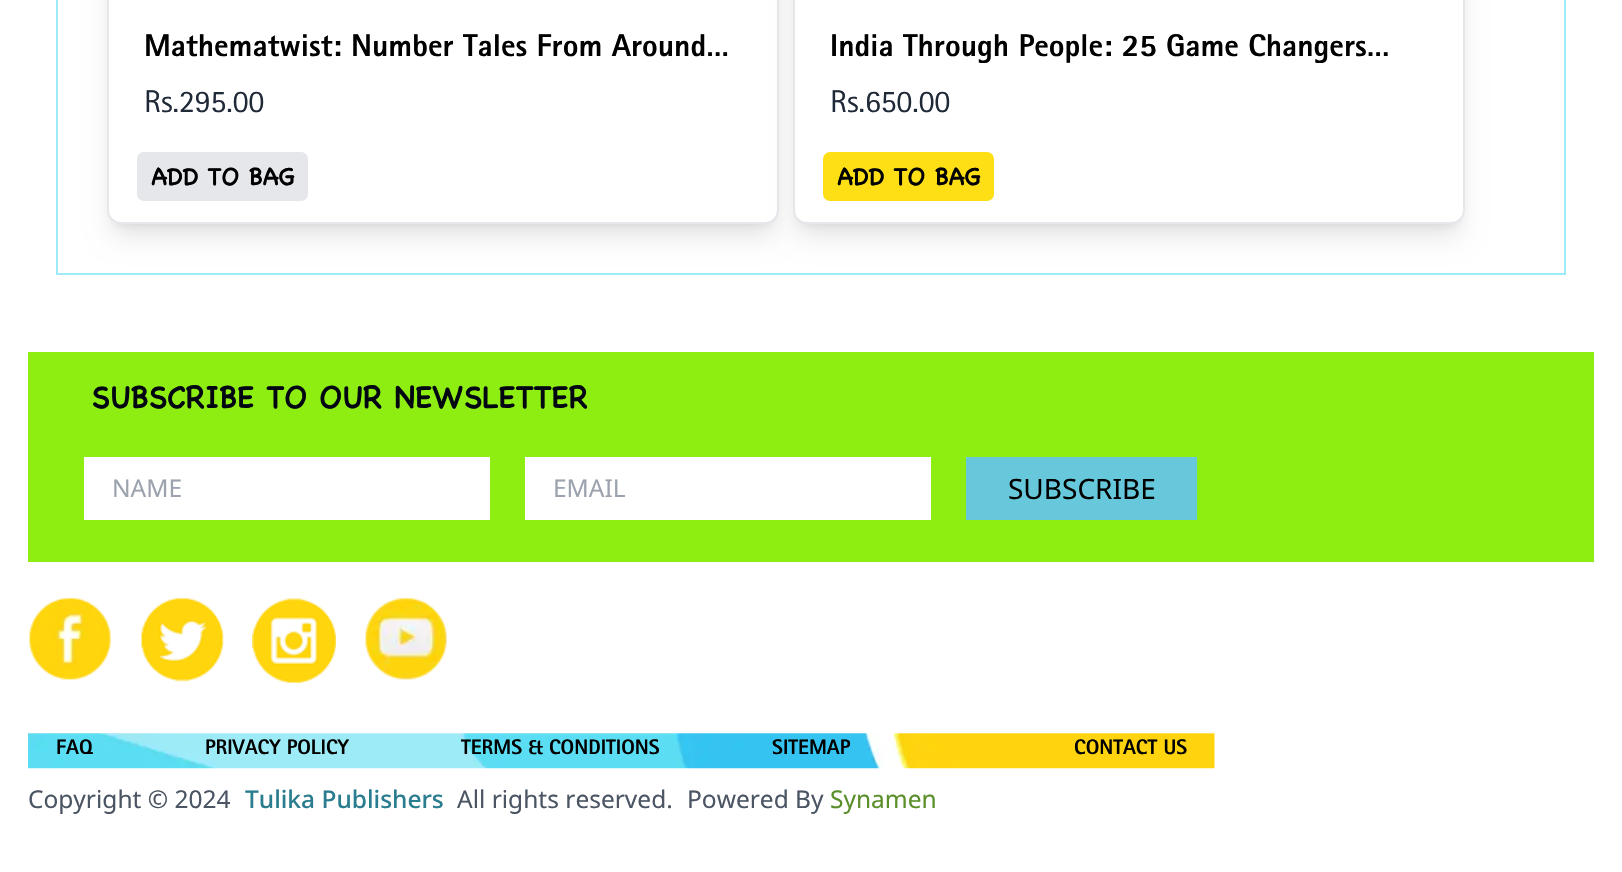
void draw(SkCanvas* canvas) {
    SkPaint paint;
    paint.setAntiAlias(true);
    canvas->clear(0xFFFFFFFF);
    paint.setStyle(SkPaint::kStroke_Style);
    paint.setStrokeWidth(2);
    paint.setColor(0xFF9DEBF8);
    canvas->drawRect(SkRect::MakeXYWH(57, -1, 1508, 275), paint);
    paint.setStyle(SkPaint::kFill_Style);
    paint.setColor(0x1A000000);
    paint.setMaskFilter(SkMaskFilter::MakeBlur(kNormal_SkBlurStyle, 5));
    canvas->drawRoundRect(SkRect::MakeXYWH(114, -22, 658, 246), 7, 7, paint);
    paint.setMaskFilter(nullptr);
    paint.setMaskFilter(SkMaskFilter::MakeBlur(kNormal_SkBlurStyle, 13));
    canvas->drawRoundRect(SkRect::MakeXYWH(112, -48, 662, 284), 9, 9, paint);
    paint.setMaskFilter(nullptr);
    paint.setColor(0xFFFFFFFF);
    canvas->drawRoundRect(SkRect::MakeXYWH(108, -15, 670, 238), 13, 13, paint);
    paint.setStyle(SkPaint::kStroke_Style);
    paint.setColor(0xFFE5E7EB);
    canvas->drawRoundRect(SkRect::MakeXYWH(108, -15, 670, 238), 13, 13, paint);
    SkFont font1(fontMgr->matchFamilyStyle("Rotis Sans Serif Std", SkFontStyle(800, SkFontStyle::kNormal_Width, SkFontStyle::kUpright_Slant)), 31.5f);
    font1.setSubpixel(true);
    paint.setStyle(SkPaint::kFill_Style);
    paint.setColor(0xFF000000);
    canvas->drawString("Mathematwist: Number Tales From Around…", 144, 56, font1, paint);
    SkFont font2(fontMgr->matchFamilyStyle("Rotis Sans Serif Std", SkFontStyle::Normal()), 31.5f);
    font2.setSubpixel(true);
    paint.setColor(0xFF1F2937);
    canvas->drawString("Rs.295.00", 144, 112, font2, paint);
    paint.setColor(0xFFE5E7EB);
    canvas->drawRoundRect(SkRect::MakeXYWH(137, 152, 171, 49), 7, 7, paint);
    SkFont font3(fontMgr->matchFamilyStyle("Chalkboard", SkFontStyle::Bold()), 24.5f);
    font3.setSubpixel(true);
    paint.setColor(0xFF000000);
    canvas->drawString("ADD TO BAG", 151, 185, font3, paint);
    paint.setColor(0x1A000000);
    paint.setMaskFilter(SkMaskFilter::MakeBlur(kNormal_SkBlurStyle, 5));
    canvas->drawRoundRect(SkRect::MakeXYWH(800, -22, 658, 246), 7, 7, paint);
    paint.setMaskFilter(nullptr);
    paint.setMaskFilter(SkMaskFilter::MakeBlur(kNormal_SkBlurStyle, 13));
    canvas->drawRoundRect(SkRect::MakeXYWH(798, -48, 662, 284), 9, 9, paint);
    paint.setMaskFilter(nullptr);
    paint.setColor(0xFFFFFFFF);
    canvas->drawRoundRect(SkRect::MakeXYWH(794, -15, 670, 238), 13, 13, paint);
    paint.setStyle(SkPaint::kStroke_Style);
    paint.setColor(0xFFE5E7EB);
    canvas->drawRoundRect(SkRect::MakeXYWH(794, -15, 670, 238), 13, 13, paint);
    paint.setStyle(SkPaint::kFill_Style);
    paint.setColor(0xFF000000);
    canvas->drawString("India Through People: 25 Game Changers…", 830, 56, font1, paint);
    paint.setColor(0xFF1F2937);
    canvas->drawString("Rs.650.00", 830, 112, font2, paint);
    paint.setColor(0xFFFEDF15);
    canvas->drawRoundRect(SkRect::MakeXYWH(823, 152, 171, 49), 7, 7, paint);
    paint.setColor(0xFF000000);
    canvas->drawString("ADD TO BAG", 837, 185, font3, paint);
    paint.setColor(0xFF8EEE11);
    canvas->drawRect(SkRect::MakeXYWH(28, 352, 1566, 210), paint);
    SkFont font4(fontMgr->matchFamilyStyle("Chalkboard", SkFontStyle::Bold()), 31.5f);
    font4.setSubpixel(true);
    paint.setColor(0xFF030712);
    canvas->drawString("SUBSCRIBE TO OUR NEWSLETTER", 91, 408, font4, paint);
    paint.setColor(0xFFFFFFFF);
    canvas->drawRect(SkRect::MakeXYWH(84, 457, 406, 63), paint);
    SkFont font5(fontMgr->matchFamilyStyle("Noto Sans", SkFontStyle::Normal()), 24.5f);
    font5.setSubpixel(true);
    paint.setColor(0xFF9CA3AF);
    canvas->drawString("NAME", 112, 497, font5, paint);
    paint.setColor(0xFFFFFFFF);
    canvas->drawRect(SkRect::MakeXYWH(525, 457, 406, 63), paint);
    paint.setColor(0xFF9CA3AF);
    canvas->drawString("EMAIL", 553, 497, font5, paint);
    paint.setColor(0xFF66C8DA);
    canvas->drawRect(SkRect::MakeXYWH(966, 457, 231, 63), paint);
    SkFont font6(fontMgr->matchFamilyStyle("Noto Sans", SkFontStyle::Normal()), 28);
    font6.setSubpixel(true);
    paint.setColor(0xFF000000);
    canvas->drawString("SUBSCRIBE", 1008, 499, font6, paint);
    canvas->drawImageRect(SkImages::DeferredFromEncodedData(SkData::MakeFromFileName("img1.png")), SkRect::MakeXYWH(29, 598, 82, 82), SkSamplingOptions());
    canvas->drawImageRect(SkImages::DeferredFromEncodedData(SkData::MakeFromFileName("img2.png")), SkRect::MakeXYWH(141, 598, 83, 84), SkSamplingOptions());
    canvas->drawImageRect(SkImages::DeferredFromEncodedData(SkData::MakeFromFileName("img3.png")), SkRect::MakeXYWH(252, 598, 84, 85), SkSamplingOptions());
    canvas->drawImageRect(SkImages::DeferredFromEncodedData(SkData::MakeFromFileName("img4.png")), SkRect::MakeXYWH(365, 598, 82, 82), SkSamplingOptions());
    canvas->drawImageRect(SkImages::DeferredFromEncodedData(SkData::MakeFromFileName("img5.png")), SkRect::MakeXYWH(28, 733, 1187, 36), SkSamplingOptions());
    SkFont font7(fontMgr->matchFamilyStyle("Rotis Sans Serif Std", SkFontStyle(800, SkFontStyle::kNormal_Width, SkFontStyle::kUpright_Slant)), 21);
    font7.setSubpixel(true);
    canvas->drawString("FAQ", 56, 754, font7, paint);
    canvas->drawString("PRIVACY POLICY", 205, 754, font7, paint);
    canvas->drawString("TERMS & CONDITIONS", 461, 754, font7, paint);
    canvas->drawString("SITEMAP", 772, 754, font7, paint);
    canvas->drawString("CONTACT US", 1074, 754, font7, paint);
    paint.setColor(0xFF4B5563);
    canvas->drawString("Copyright © 2024", 28, 808, font5, paint);
    SkFont font8(fontMgr->matchFamilyStyle("Noto Sans", SkFontStyle(500, SkFontStyle::kNormal_Width, SkFontStyle::kUpright_Slant)), 24.5f);
    font8.setSubpixel(true);
    paint.setColor(0xFF2A7D8F);
    canvas->drawString("Tulika Publishers", 245, 808, font8, paint);
    paint.setColor(0xFF4B5563);
    canvas->drawString("All rights reserved.", 457, 808, font5, paint);
    canvas->drawString("Powered By", 687, 808, font5, paint);
    paint.setColor(0xFF5A8F2A);
    canvas->drawString("Synamen", 830, 808, font5, paint);
}
